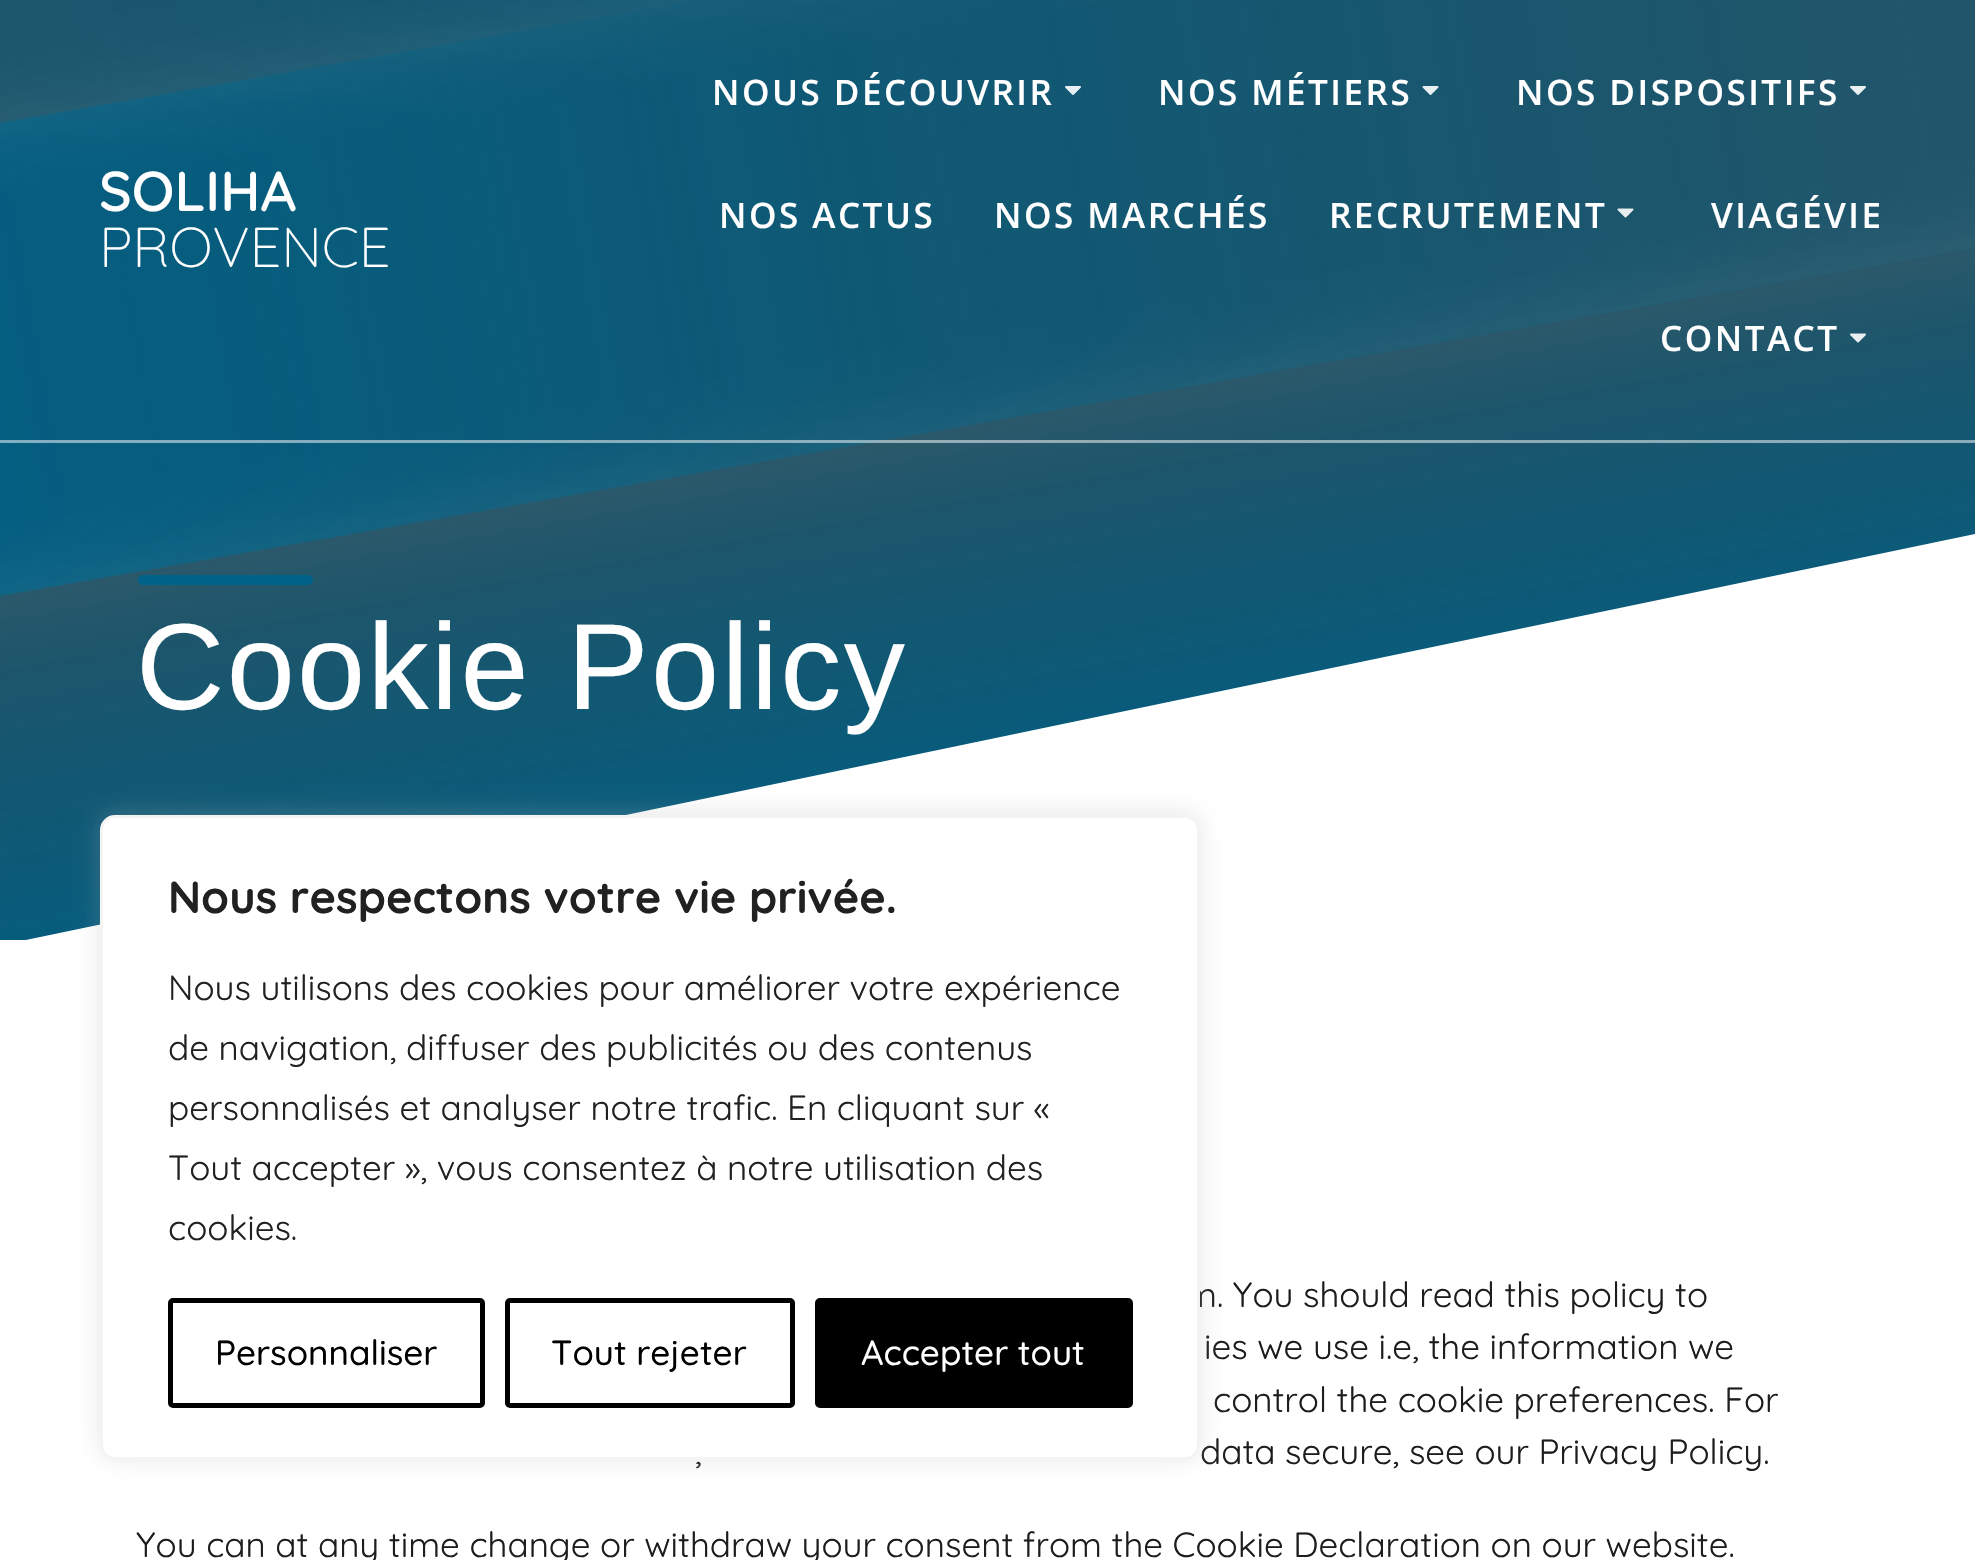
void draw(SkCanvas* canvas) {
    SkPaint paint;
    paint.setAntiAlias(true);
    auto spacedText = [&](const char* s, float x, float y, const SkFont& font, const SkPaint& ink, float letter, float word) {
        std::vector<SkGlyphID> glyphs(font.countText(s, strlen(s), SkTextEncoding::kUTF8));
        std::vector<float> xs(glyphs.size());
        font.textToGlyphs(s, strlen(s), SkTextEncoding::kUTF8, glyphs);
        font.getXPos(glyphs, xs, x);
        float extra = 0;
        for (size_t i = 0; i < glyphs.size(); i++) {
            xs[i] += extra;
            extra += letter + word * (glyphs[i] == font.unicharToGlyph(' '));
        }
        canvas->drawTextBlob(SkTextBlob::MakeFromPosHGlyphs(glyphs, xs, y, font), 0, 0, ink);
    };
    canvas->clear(0xFFFFFFFF);
    paint.setColor(0xFF006288);
    canvas->drawRect(SkRect::MakeXYWH(0, 0, 1975, 940), paint);
    canvas->drawImageRect(SkImages::DeferredFromEncodedData(SkData::MakeFromFileName("img6.png")), SkRect::MakeXYWH(0, 0, 1975, 940), SkSamplingOptions());
    paint.setColor(0x80FFFFFF);
    canvas->drawRect(SkRect::MakeXYWH(0, 440, 1975, 3), paint);
    SkFont font1(fontMgr->matchFamilyStyle("Quicksand", SkFontStyle(600, SkFontStyle::kNormal_Width, SkFontStyle::kUpright_Slant)), 56);
    font1.setSubpixel(true);
    paint.setColor(0xFFFFFFFF);
    canvas->drawString("SOLIHA", 99, 211, font1, paint);
    SkFont font2(fontMgr->matchFamilyStyle("Quicksand", SkFontStyle(300, SkFontStyle::kNormal_Width, SkFontStyle::kUpright_Slant)), 56);
    font2.setSubpixel(true);
    canvas->drawString("PROVENCE", 99, 267, font2, paint);
    SkFont font3(fontMgr->matchFamilyStyle("Open Sans", SkFontStyle(600, SkFontStyle::kNormal_Width, SkFontStyle::kUpright_Slant)), 35);
    font3.setSubpixel(true);
    spacedText("NOUS DÉCOUVRIR", 712, 105, font3, paint, 2.5f, 0);
    canvas->drawImageRect(SkImages::DeferredFromEncodedData(SkData::MakeFromFileName("img1.png")), SkRect::MakeXYWH(1065, 86, 16, 9), SkSamplingOptions());
    spacedText("NOS MÉTIERS", 1158, 105, font3, paint, 2.5f, 0);
    canvas->drawImageRect(SkImages::DeferredFromEncodedData(SkData::MakeFromFileName("img2.png")), SkRect::MakeXYWH(1422, 86, 17, 9), SkSamplingOptions());
    spacedText("NOS DISPOSITIFS", 1516, 105, font3, paint, 2.5f, 0);
    canvas->drawImageRect(SkImages::DeferredFromEncodedData(SkData::MakeFromFileName("img3.png")), SkRect::MakeXYWH(1850, 86, 16, 9), SkSamplingOptions());
    spacedText("NOS ACTUS", 719, 228, font3, paint, 2.5f, 0);
    spacedText("NOS MARCHÉS", 994, 228, font3, paint, 2.5f, 0);
    spacedText("RECRUTEMENT", 1329, 228, font3, paint, 2.5f, 0);
    canvas->drawImageRect(SkImages::DeferredFromEncodedData(SkData::MakeFromFileName("img4.png")), SkRect::MakeXYWH(1617, 208, 17, 10), SkSamplingOptions());
    spacedText("VIAGÉVIE", 1711, 228, font3, paint, 2.5f, 0);
    spacedText("CONTACT", 1660, 351, font3, paint, 2.5f, 0);
    canvas->drawImageRect(SkImages::DeferredFromEncodedData(SkData::MakeFromFileName("img5.png")), SkRect::MakeXYWH(1850, 333, 16, 10), SkSamplingOptions());
    canvas->save();
    canvas->clipRect(SkRect::MakeXYWH(0, 533, 1975, 412));
    canvas->drawPath(SkPathBuilder().moveTo(-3, 946).lineTo(1975, 946).lineTo(1975, 534).close().detach(), paint);
    canvas->restore();
    paint.setColor(0xFF006288);
    canvas->drawRoundRect(SkRect::MakeXYWH(138, 575, 175, 10), 5, 5, paint);
    SkFont font4(fontMgr->matchFamilyStyle("Liberation Sans", SkFontStyle::Normal()), 122.5f);
    font4.setSubpixel(true);
    paint.setColor(0xFFFFFFFF);
    spacedText("Cookie Policy", 136, 709, font4, paint, 2.25f, 0);
    SkFont font5(fontMgr->matchFamilyStyle("Quicksand", SkFontStyle::Normal()), 35);
    font5.setSubpixel(true);
    paint.setColor(0xFF1D1E1B);
    canvas->drawString("m. You should read this policy to", 1185, 1307, font5, paint);
    canvas->drawString("ies we use i.e, the information we", 1204, 1359, font5, paint);
    canvas->drawString("control the cookie preferences. For", 1213, 1412, font5, paint);
    canvas->drawString(",", 695, 1464, font5, paint);
    canvas->drawString("data secure, see our Privacy Policy.", 1200, 1464, font5, paint);
    canvas->drawString("You can at any time change or withdraw your consent from the Cookie Declaration on our website.", 136, 1557, font5, paint);
    paint.setColor(0x4DACABAB);
    paint.setMaskFilter(SkMaskFilter::MakeBlur(kNormal_SkBlurStyle, 12.5f));
    canvas->drawRoundRect(SkRect::MakeXYWH(100, 813, 1100, 645), 15, 15, paint);
    paint.setMaskFilter(nullptr);
    paint.setColor(0xFFFFFFFF);
    canvas->drawRoundRect(SkRect::MakeXYWH(101.5f, 816.5f, 1097, 642), 13.5f, 13.5f, paint);
    paint.setStyle(SkPaint::kStroke_Style);
    paint.setStrokeWidth(3);
    paint.setColor(0xFFF4F4F4);
    canvas->drawRoundRect(SkRect::MakeXYWH(101.5f, 816.5f, 1097, 642), 13.5f, 13.5f, paint);
    SkFont font6(fontMgr->matchFamilyStyle("Quicksand", SkFontStyle::Bold()), 45);
    font6.setSubpixel(true);
    paint.setStyle(SkPaint::kFill_Style);
    paint.setColor(0xFF212121);
    canvas->drawString("Nous respectons votre vie privée.", 168, 913, font6, paint);
    canvas->drawString("Nous utilisons des cookies pour améliorer votre expérience", 168, 1000, font5, paint);
    canvas->drawString("de navigation, diffuser des publicités ou des contenus", 168, 1060, font5, paint);
    canvas->drawString("personnalisés et analyser notre trafic. En cliquant sur «", 168, 1120, font5, paint);
    canvas->drawString("Tout accepter », vous consentez à notre utilisation des", 168, 1180, font5, paint);
    canvas->drawString("cookies.", 168, 1240, font5, paint);
    paint.setStyle(SkPaint::kStroke_Style);
    paint.setStrokeWidth(5);
    paint.setColor(0xFF000000);
    canvas->drawRoundRect(SkRect::MakeXYWH(170.5f, 1300.5f, 312, 105), 2.5f, 2.5f, paint);
    SkFont font7(fontMgr->matchFamilyStyle("Quicksand", SkFontStyle(500, SkFontStyle::kNormal_Width, SkFontStyle::kUpright_Slant)), 35);
    font7.setSubpixel(true);
    paint.setStyle(SkPaint::kFill_Style);
    canvas->drawString("Personnaliser", 215, 1365, font7, paint);
    paint.setStyle(SkPaint::kStroke_Style);
    canvas->drawRoundRect(SkRect::MakeXYWH(507.5f, 1300.5f, 285, 105), 2.5f, 2.5f, paint);
    paint.setStyle(SkPaint::kFill_Style);
    canvas->drawString("Tout rejeter", 551, 1365, font7, paint);
    canvas->drawRoundRect(SkRect::MakeXYWH(817.5f, 1300.5f, 313, 105), 2.5f, 2.5f, paint);
    paint.setStyle(SkPaint::kStroke_Style);
    canvas->drawRoundRect(SkRect::MakeXYWH(817.5f, 1300.5f, 313, 105), 2.5f, 2.5f, paint);
    paint.setStyle(SkPaint::kFill_Style);
    paint.setColor(0xFFFFFFFF);
    canvas->drawString("Accepter tout", 861, 1365, font7, paint);
}
